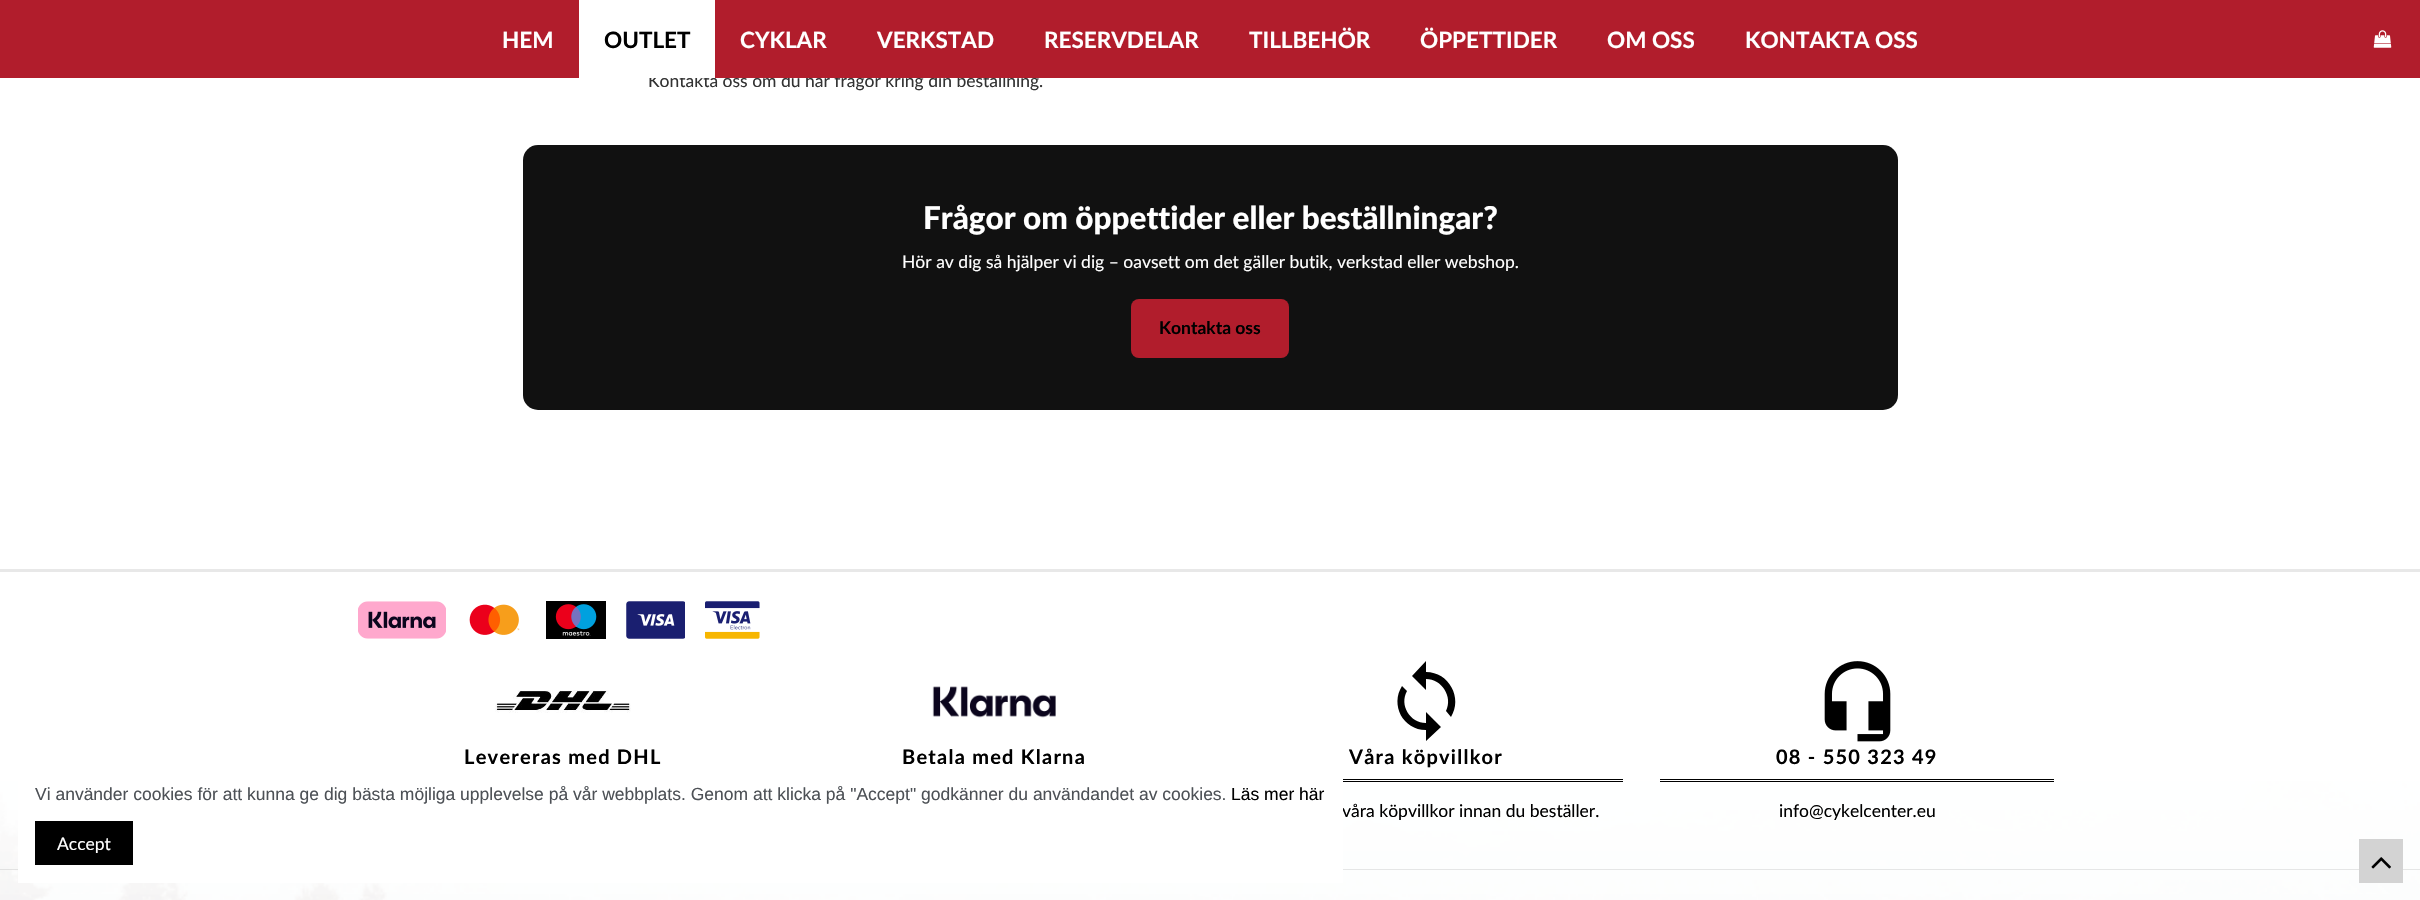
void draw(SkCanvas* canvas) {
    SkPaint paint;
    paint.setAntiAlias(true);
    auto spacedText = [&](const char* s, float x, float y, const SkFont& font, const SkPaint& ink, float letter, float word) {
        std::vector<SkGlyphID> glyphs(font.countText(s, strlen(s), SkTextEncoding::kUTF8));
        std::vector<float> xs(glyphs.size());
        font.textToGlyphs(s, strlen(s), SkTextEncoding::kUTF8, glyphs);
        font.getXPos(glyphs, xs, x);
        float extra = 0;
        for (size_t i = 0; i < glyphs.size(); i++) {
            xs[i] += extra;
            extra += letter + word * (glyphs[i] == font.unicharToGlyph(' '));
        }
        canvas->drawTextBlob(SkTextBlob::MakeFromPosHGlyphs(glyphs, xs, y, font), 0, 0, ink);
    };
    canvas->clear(0xFFFFFFFF);
    SkFont font1(fontMgr->matchFamilyStyle("Lato", SkFontStyle::Normal()), 17.5f);
    font1.setSubpixel(true);
    paint.setColor(0xFF333333);
    canvas->drawString("Kontakta oss om du har frågor kring din beställning.", 648, 87, font1, paint);
    paint.setColor(0xFFB11D2C);
    canvas->drawRect(SkRect::MakeXYWH(0, 0, 2420, 78), paint);
    SkFont font2(fontMgr->matchFamilyStyle("Lato", SkFontStyle::Bold()), 22.5f);
    font2.setSubpixel(true);
    paint.setColor(0xFFFFFFFF);
    canvas->drawString("HEM", 502, 48, font2, paint);
    canvas->drawRect(SkRect::MakeXYWH(579, 0, 136, 78), paint);
    paint.setColor(0xFF000000);
    canvas->drawString("OUTLET", 604, 48, font2, paint);
    paint.setColor(0xFFFFFFFF);
    canvas->drawString("CYKLAR", 740, 48, font2, paint);
    canvas->drawString("VERKSTAD", 877, 48, font2, paint);
    canvas->drawString("RESERVDELAR", 1044, 48, font2, paint);
    canvas->drawString("TILLBEHÖR", 1249, 48, font2, paint);
    canvas->drawString("ÖPPETTIDER", 1420, 48, font2, paint);
    canvas->drawString("OM OSS", 1607, 48, font2, paint);
    canvas->drawString("KONTAKTA OSS", 1745, 48, font2, paint);
    canvas->drawImageRect(SkImages::DeferredFromEncodedData(SkData::MakeFromFileName("img1.png")), SkRect::MakeXYWH(2373, 30, 19, 18), SkSamplingOptions());
    paint.setColor(0xFF111111);
    canvas->drawRoundRect(SkRect::MakeXYWH(523, 145, 1375, 265), 15, 15, paint);
    SkFont font3(fontMgr->matchFamilyStyle("Lato", SkFontStyle(900, SkFontStyle::kNormal_Width, SkFontStyle::kUpright_Slant)), 31.5f);
    font3.setSubpixel(true);
    paint.setColor(0xFFFFFFFF);
    canvas->drawString("Frågor om öppettider eller beställningar?", 923, 229, font3, paint);
    canvas->drawString("Hör av dig så hjälper vi dig – oavsett om det gäller butik, verkstad eller webshop.", 902, 268, font1, paint);
    paint.setColor(0xFFB11D2C);
    canvas->drawRoundRect(SkRect::MakeXYWH(1131, 299, 158, 59), 8, 8, paint);
    SkFont font4(fontMgr->matchFamilyStyle("Lato", SkFontStyle::Bold()), 17.5f);
    font4.setSubpixel(true);
    paint.setColor(0xFF000000);
    canvas->drawString("Kontakta oss", 1159, 334, font4, paint);
    canvas->drawImageRect(SkImages::DeferredFromEncodedData(SkData::MakeFromFileName("img2.png")), SkRect::MakeXYWH(0, 572, 2420, 328), SkSamplingOptions());
    paint.setColor(0xFFE8E8E8);
    canvas->drawRect(SkRect::MakeXYWH(0, 569, 2420, 3), paint);
    canvas->drawImageRect(SkImages::DeferredFromEncodedData(SkData::MakeFromFileName("img3.png")), SkRect::MakeXYWH(358, 601, 88, 38), SkSamplingOptions());
    canvas->drawImageRect(SkImages::DeferredFromEncodedData(SkData::MakeFromFileName("img4.png")), SkRect::MakeXYWH(469, 604, 51, 31), SkSamplingOptions());
    canvas->drawImageRect(SkImages::DeferredFromEncodedData(SkData::MakeFromFileName("img5.png")), SkRect::MakeXYWH(546, 601, 60, 38), SkSamplingOptions());
    canvas->drawImageRect(SkImages::DeferredFromEncodedData(SkData::MakeFromFileName("img6.png")), SkRect::MakeXYWH(626, 601, 59, 38), SkSamplingOptions());
    canvas->drawImageRect(SkImages::DeferredFromEncodedData(SkData::MakeFromFileName("img7.png")), SkRect::MakeXYWH(705, 601, 55, 38), SkSamplingOptions());
    canvas->drawImageRect(SkImages::DeferredFromEncodedData(SkData::MakeFromFileName("img8.png")), SkRect::MakeXYWH(495, 690, 136, 23), SkSamplingOptions());
    SkFont font5(fontMgr->matchFamilyStyle("Lato", SkFontStyle::Bold()), 20);
    font5.setSubpixel(true);
    paint.setColor(0xFF000000);
    spacedText("Levereras med DHL", 464, 764, font5, paint, 1.25f, 0);
    canvas->drawImageRect(SkImages::DeferredFromEncodedData(SkData::MakeFromFileName("img9.png")), SkRect::MakeXYWH(932, 686, 124, 32), SkSamplingOptions());
    spacedText("Betala med Klarna", 902, 764, font5, paint, 1.25f, 0);
    canvas->drawPath(SkPathBuilder().moveTo(1426, 672).lineTo(1426, 661).lineTo(1412, 676).lineTo(1426, 690).lineTo(1426, 679).cubicTo(1442, 679, 1453, 697, 1446, 711).lineTo(1451, 717).cubicTo(1463, 698, 1449, 672, 1426, 672).close().moveTo(1426, 723).cubicTo(1410, 723, 1399, 705, 1407, 691).lineTo(1402, 686).cubicTo(1390, 705, 1403, 730, 1426, 730).lineTo(1426, 741).lineTo(1441, 727).lineTo(1426, 712).close().detach(), paint);
    canvas->drawRect(SkRect::MakeXYWH(1343, 779, 280, 1), paint);
    canvas->drawRect(SkRect::MakeXYWH(1343, 781, 280, 1), paint);
    spacedText("Våra köpvillkor", 1349, 764, font5, paint, 1.25f, 0);
    canvas->drawString("våra köpvillkor innan du beställer.", 1342, 817, font1, paint);
    canvas->drawImageRect(SkImages::DeferredFromEncodedData(SkData::MakeFromFileName("img10.png")), SkRect::MakeXYWH(1824, 661, 67, 81), SkSamplingOptions());
    canvas->drawRect(SkRect::MakeXYWH(1660, 779, 394, 1), paint);
    canvas->drawRect(SkRect::MakeXYWH(1660, 781, 394, 1), paint);
    spacedText("08 - 550 323 49", 1776, 764, font5, paint, 1.25f, 0);
    canvas->drawString("info@cykelcenter.eu", 1779, 817, font1, paint);
    paint.setColor(0x40A1A1A1);
    canvas->drawRect(SkRect::MakeXYWH(0, 869, 2420, 1), paint);
    paint.setColor(0xFFFFFFFF);
    canvas->drawRect(SkRect::MakeXYWH(18, 764, 1325, 119), paint);
    SkFont font6(fontMgr->matchFamilyStyle("Liberation Sans", SkFontStyle::Normal()), 17.5f);
    font6.setSubpixel(true);
    paint.setColor(0xFF4D5156);
    canvas->drawString("Vi använder cookies för att kunna ge dig bästa möjliga upplevelse på vår webbplats. Genom att klicka på \"Accept\" godkänner du användandet av cookies.", 35, 800, font6, paint);
    paint.setColor(0xFF000000);
    canvas->drawString("Läs mer här", 1231, 800, font6, paint);
    canvas->drawRect(SkRect::MakeXYWH(35, 821, 98, 44), paint);
    paint.setColor(0xFFFFFFFF);
    canvas->drawString("Accept", 57, 850, font1, paint);
    paint.setColor(0xFFD3D3D3);
    canvas->drawRect(SkRect::MakeXYWH(2359, 839, 44, 44), paint);
    canvas->drawImageRect(SkImages::DeferredFromEncodedData(SkData::MakeFromFileName("img11.png")), SkRect::MakeXYWH(2371, 857, 20, 12), SkSamplingOptions());
}
